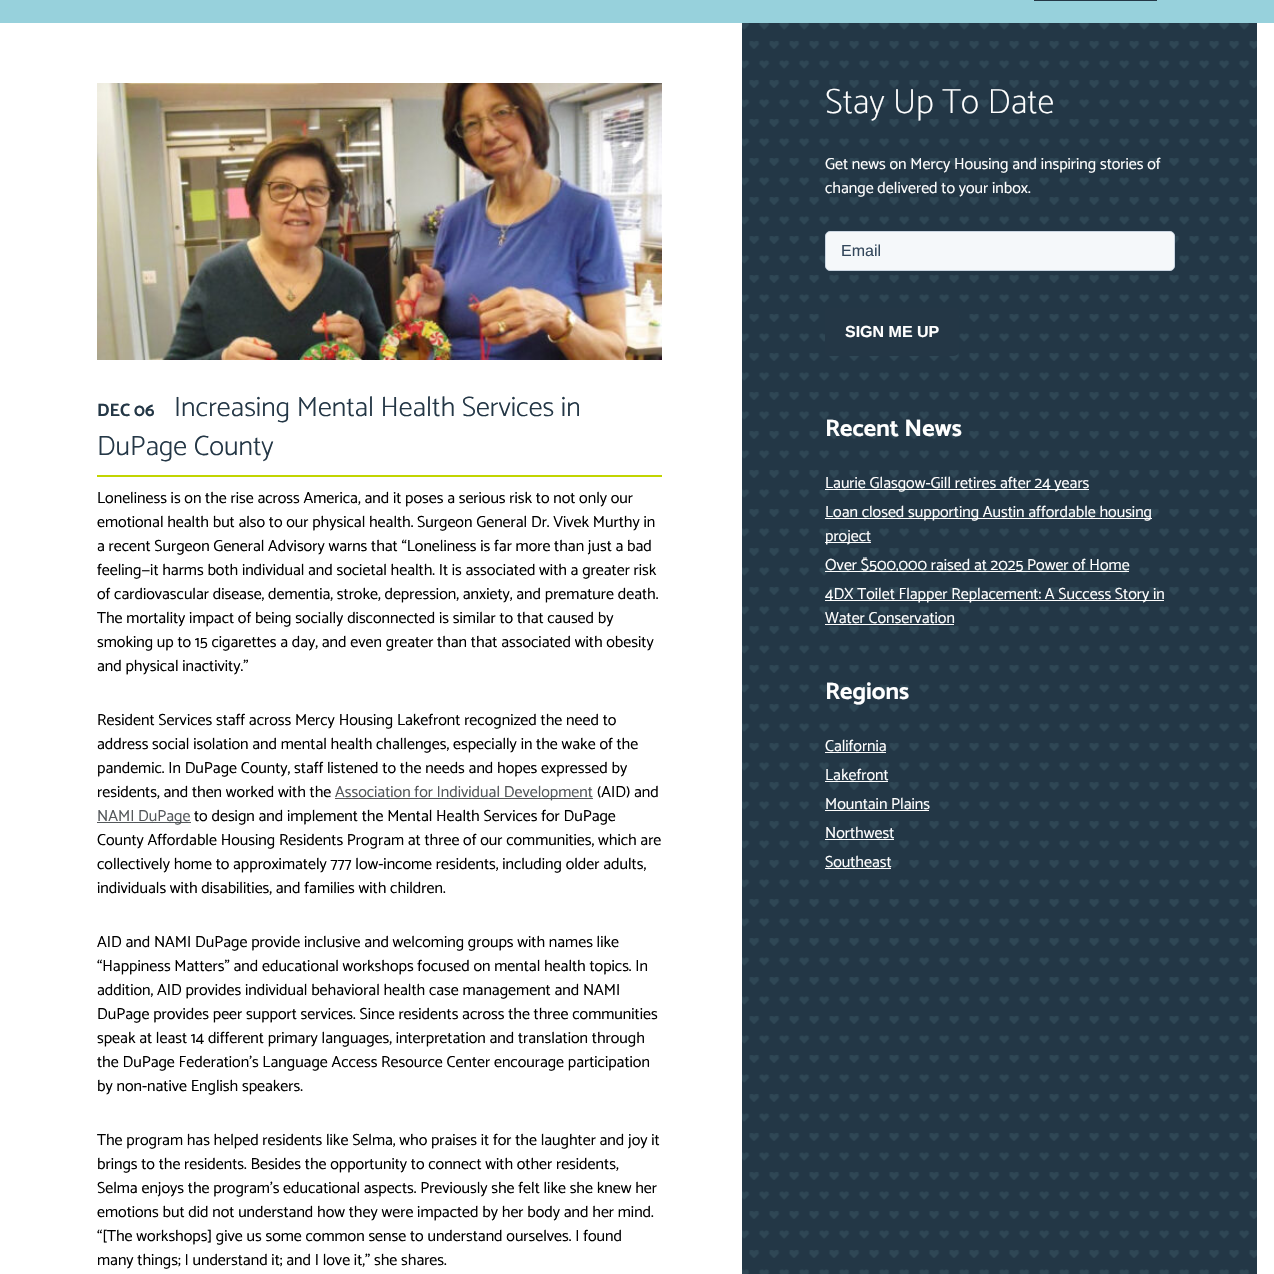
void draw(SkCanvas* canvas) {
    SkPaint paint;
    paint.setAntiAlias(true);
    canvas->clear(0xFFFFFFFF);
    paint.setColor(0xFF97D1DC);
    canvas->drawRect(SkRect::MakeXYWH(0, 0, 1274, 23), paint);
    paint.setStyle(SkPaint::kStroke_Style);
    paint.setStrokeWidth(1);
    paint.setColor(0xFF243746);
    canvas->drawRect(SkRect::MakeXYWH(1034.5f, -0.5f, 122, 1), paint);
    canvas->drawImageRect(SkImages::DeferredFromEncodedData(SkData::MakeFromFileName("img1.png")), SkRect::MakeXYWH(97, 83, 565, 277), SkSamplingOptions());
    paint.setStyle(SkPaint::kFill_Style);
    paint.setColor(0xFFC2D500);
    canvas->drawRect(SkRect::MakeXYWH(97, 475, 565, 2), paint);
    SkFont font1(fontMgr->matchFamilyStyle("Catamaran", SkFontStyle::Bold()), 18);
    font1.setSubpixel(true);
    paint.setColor(0xFF243746);
    canvas->drawString("DEC 06", 97, 416, font1, paint);
    SkFont font2(fontMgr->matchFamilyStyle("Catamaran", SkFontStyle(300, SkFontStyle::kNormal_Width, SkFontStyle::kUpright_Slant)), 28);
    font2.setSubpixel(true);
    canvas->drawString("Increasing Mental Health Services in", 174, 416, font2, paint);
    canvas->drawString("DuPage County", 97, 455, font2, paint);
    SkFont font3(fontMgr->matchFamilyStyle("Catamaran", SkFontStyle::Normal()), 16);
    font3.setSubpixel(true);
    paint.setColor(0xFF000000);
    canvas->drawString("Loneliness is on the rise across America, and it poses a serious risk to not only our", 97, 503, font3, paint);
    canvas->drawString("emotional health but also to our physical health. Surgeon General Dr. Vivek Murthy in", 97, 527, font3, paint);
    canvas->drawString("a recent Surgeon General Advisory warns that “Loneliness is far more than just a bad", 97, 551, font3, paint);
    canvas->drawString("feeling—it harms both individual and societal health. It is associated with a greater risk", 97, 575, font3, paint);
    canvas->drawString("of cardiovascular disease, dementia, stroke, depression, anxiety, and premature death.", 97, 599, font3, paint);
    canvas->drawString("The mortality impact of being socially disconnected is similar to that caused by", 97, 623, font3, paint);
    canvas->drawString("smoking up to 15 cigarettes a day, and even greater than that associated with obesity", 97, 647, font3, paint);
    canvas->drawString("and physical inactivity.”", 97, 671, font3, paint);
    canvas->drawString("Resident Services staff across Mercy Housing Lakefront recognized the need to", 97, 725, font3, paint);
    canvas->drawString("address social isolation and mental health challenges, especially in the wake of the", 97, 749, font3, paint);
    canvas->drawString("pandemic. In DuPage County, staff listened to the needs and hopes expressed by", 97, 773, font3, paint);
    canvas->drawString("residents, and then worked with the", 97, 797, font3, paint);
    paint.setColor(0xFF53575A);
    canvas->drawRect(SkRect::MakeXYWH(335, 798, 258, 1), paint);
    canvas->drawString("Association for Individual Development", 335, 797, font3, paint);
    paint.setColor(0xFF000000);
    canvas->drawString("(AID) and", 597, 797, font3, paint);
    paint.setColor(0xFF53575A);
    canvas->drawRect(SkRect::MakeXYWH(97, 822, 94, 1), paint);
    canvas->drawString("NAMI DuPage", 97, 821, font3, paint);
    paint.setColor(0xFF000000);
    canvas->drawString("to design and implement the Mental Health Services for DuPage", 194, 821, font3, paint);
    canvas->drawString("County Affordable Housing Residents Program at three of our communities, which are", 97, 845, font3, paint);
    canvas->drawString("collectively home to approximately 777 low-income residents, including older adults,", 97, 869, font3, paint);
    canvas->drawString("individuals with disabilities, and families with children.", 97, 893, font3, paint);
    canvas->drawString("AID and NAMI DuPage provide inclusive and welcoming groups with names like", 97, 947, font3, paint);
    canvas->drawString("“Happiness Matters” and educational workshops focused on mental health topics. In", 97, 971, font3, paint);
    canvas->drawString("addition, AID provides individual behavioral health case management and NAMI", 97, 995, font3, paint);
    canvas->drawString("DuPage provides peer support services. Since residents across the three communities", 97, 1019, font3, paint);
    canvas->drawString("speak at least 14 different primary languages, interpretation and translation through", 97, 1043, font3, paint);
    canvas->drawString("the DuPage Federation’s Language Access Resource Center encourage participation", 97, 1067, font3, paint);
    canvas->drawString("by non-native English speakers.", 97, 1091, font3, paint);
    canvas->drawString("The program has helped residents like Selma, who praises it for the laughter and joy it", 97, 1145, font3, paint);
    canvas->drawString("brings to the residents. Besides the opportunity to connect with other residents,", 97, 1169, font3, paint);
    canvas->drawString("Selma enjoys the program’s educational aspects. Previously she felt like she knew her", 97, 1193, font3, paint);
    canvas->drawString("emotions but did not understand how they were impacted by her body and her mind.", 97, 1217, font3, paint);
    canvas->drawString("“[The workshops] give us some common sense to understand ourselves. I found", 97, 1241, font3, paint);
    canvas->drawString("many things; I understand it; and I love it,” she shares.", 97, 1265, font3, paint);
    canvas->drawImageRect(SkImages::DeferredFromEncodedData(SkData::MakeFromFileName("img2.png")), SkRect::MakeXYWH(742, 23, 515, 1251), SkSamplingOptions());
    SkFont font4(fontMgr->matchFamilyStyle("Catamaran", SkFontStyle(100, SkFontStyle::kNormal_Width, SkFontStyle::kUpright_Slant)), 35);
    font4.setSubpixel(true);
    paint.setColor(0xFFFFFFFF);
    canvas->drawString("Stay Up To Date", 825, 113, font4, paint);
    canvas->drawString("Get news on Mercy Housing and inspiring stories of", 825, 169, font3, paint);
    canvas->drawString("change delivered to your inbox.", 825, 193, font3, paint);
    paint.setColor(0xFFF5F8FA);
    canvas->drawRoundRect(SkRect::MakeXYWH(825.5f, 231.5f, 349, 39), 4.5f, 4.5f, paint);
    paint.setStyle(SkPaint::kStroke_Style);
    paint.setColor(0xFFCBD6E2);
    canvas->drawRoundRect(SkRect::MakeXYWH(825.5f, 231.5f, 349, 39), 4.5f, 4.5f, paint);
    SkFont font5(fontMgr->matchFamilyStyle("Liberation Sans", SkFontStyle::Normal()), 16);
    font5.setSubpixel(true);
    paint.setStyle(SkPaint::kFill_Style);
    paint.setColor(0xFF33475B);
    canvas->drawString("Email", 841, 256, font5, paint);
    paint.setColor(0xFF243746);
    canvas->drawRoundRect(SkRect::MakeXYWH(825, 308, 134, 48), 5, 5, paint);
    SkFont font6(fontMgr->matchFamilyStyle("Liberation Sans", SkFontStyle::Bold()), 16);
    font6.setSubpixel(true);
    paint.setColor(0xFFFFFFFF);
    canvas->drawString("SIGN ME UP", 845, 337, font6, paint);
    SkFont font7(fontMgr->matchFamilyStyle("Catamaran", SkFontStyle::Bold()), 24);
    font7.setSubpixel(true);
    canvas->drawString("Recent News", 825, 436, font7, paint);
    canvas->drawRect(SkRect::MakeXYWH(825, 489, 264, 1), paint);
    canvas->drawString("Laurie Glasgow-Gill retires after 24 years", 825, 488, font3, paint);
    canvas->drawRect(SkRect::MakeXYWH(825, 518, 327, 1), paint);
    canvas->drawString("Loan closed supporting Austin affordable housing", 825, 517, font3, paint);
    canvas->drawRect(SkRect::MakeXYWH(825, 542, 46, 1), paint);
    canvas->drawString("project", 825, 541, font3, paint);
    canvas->drawRect(SkRect::MakeXYWH(825, 571, 304, 1), paint);
    canvas->drawString("Over $500,000 raised at 2025 Power of Home", 825, 570, font3, paint);
    canvas->drawRect(SkRect::MakeXYWH(825, 600, 339, 1), paint);
    canvas->drawString("4DX Toilet Flapper Replacement: A Success Story in", 825, 599, font3, paint);
    canvas->drawString("Water Conservation", 825, 623, font3, paint);
    canvas->drawRect(SkRect::MakeXYWH(825, 624, 129, 1), paint);
    canvas->drawString("Regions", 825, 699, font7, paint);
    canvas->drawString("California", 825, 751, font3, paint);
    canvas->drawRect(SkRect::MakeXYWH(825, 752, 61, 1), paint);
    canvas->drawString("Lakefront", 825, 780, font3, paint);
    canvas->drawRect(SkRect::MakeXYWH(825, 781, 63, 1), paint);
    canvas->drawString("Mountain Plains", 825, 809, font3, paint);
    canvas->drawRect(SkRect::MakeXYWH(825, 810, 104, 1), paint);
    canvas->drawString("Northwest", 825, 838, font3, paint);
    canvas->drawRect(SkRect::MakeXYWH(825, 839, 69, 1), paint);
    canvas->drawString("Southeast", 825, 867, font3, paint);
    canvas->drawRect(SkRect::MakeXYWH(825, 868, 66, 1), paint);
}
